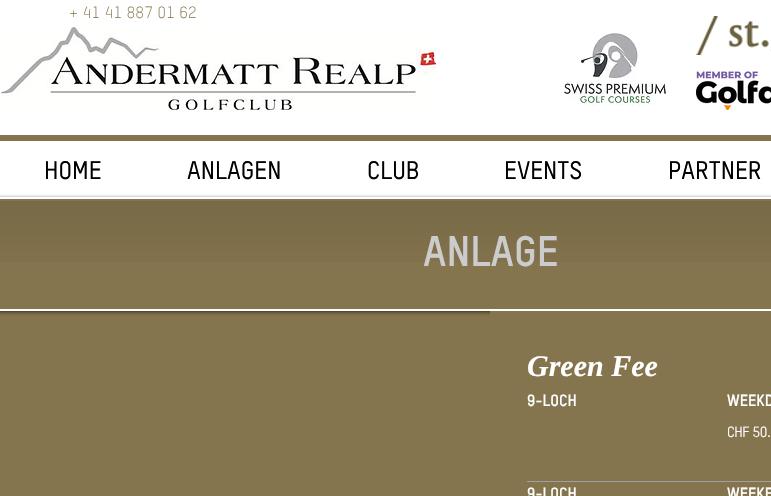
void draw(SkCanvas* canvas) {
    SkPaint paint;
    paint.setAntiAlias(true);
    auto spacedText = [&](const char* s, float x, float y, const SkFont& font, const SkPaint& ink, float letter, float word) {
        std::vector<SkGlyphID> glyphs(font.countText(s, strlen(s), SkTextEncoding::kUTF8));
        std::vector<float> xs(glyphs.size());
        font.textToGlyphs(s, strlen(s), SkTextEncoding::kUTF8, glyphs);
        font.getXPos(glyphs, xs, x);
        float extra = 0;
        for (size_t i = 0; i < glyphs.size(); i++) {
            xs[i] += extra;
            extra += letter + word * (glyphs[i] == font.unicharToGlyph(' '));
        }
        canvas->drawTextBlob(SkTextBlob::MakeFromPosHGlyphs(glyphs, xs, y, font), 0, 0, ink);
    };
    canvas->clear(0xFF85754E);
    paint.setColor(0xFFFFFFFF);
    canvas->drawRect(SkRect::MakeXYWH(0, 0, 771, 197), paint);
    SkFont font1(fontMgr->matchFamilyStyle("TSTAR", SkFontStyle(300, SkFontStyle::kNormal_Width, SkFontStyle::kUpright_Slant)), 16);
    font1.setSubpixel(true);
    paint.setColor(0xFF85754E);
    spacedText("+ 41 41 887 01 62", 69, 18, font1, paint, 0.6f, 0);
    canvas->drawImageRect(SkImages::DeferredFromEncodedData(SkData::MakeFromFileName("img1.png")), SkRect::MakeXYWH(1, 27, 435, 83), SkSamplingOptions());
    canvas->drawImageRect(SkImages::DeferredFromEncodedData(SkData::MakeFromFileName("img2.png")), SkRect::MakeXYWH(561, 30, 108, 76), SkSamplingOptions());
    canvas->drawImageRect(SkImages::DeferredFromEncodedData(SkData::MakeFromFileName("img3.png")), SkRect::MakeXYWH(696, 16, 75, 39), SkSamplingOptions());
    canvas->drawImageRect(SkImages::DeferredFromEncodedData(SkData::MakeFromFileName("img4.png")), SkRect::MakeXYWH(696, 71, 75, 39), SkSamplingOptions());
    canvas->drawRect(SkRect::MakeXYWH(0, 135, 771, 6), paint);
    SkFont font2(fontMgr->matchFamilyStyle("TSTAR", SkFontStyle(500, SkFontStyle::kNormal_Width, SkFontStyle::kUpright_Slant)), 25);
    font2.setSubpixel(true);
    paint.setColor(0xFF000000);
    canvas->drawString("HOME", 44, 179, font2, paint);
    canvas->drawString("ANLAGEN", 187, 179, font2, paint);
    canvas->drawString("CLUB", 367, 179, font2, paint);
    canvas->drawString("EVENTS", 504, 179, font2, paint);
    canvas->drawString("PARTNER", 668, 179, font2, paint);
    canvas->save();
    canvas->clipPath(SkPathBuilder(SkPathFillType::kEvenOdd).moveTo(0, 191).lineTo(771, 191).lineTo(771, 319).lineTo(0, 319).close().moveTo(-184, 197).lineTo(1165, 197).lineTo(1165, 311).lineTo(-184, 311).close().detach(), true);
    paint.setColor(0x99000000);
    paint.setMaskFilter(SkMaskFilter::MakeBlur(kNormal_SkBlurStyle, 2));
    canvas->drawRect(SkRect::MakeXYWH(-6, 198, 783, 114), paint);
    paint.setMaskFilter(nullptr);
    canvas->restore();
    canvas->drawImageRect(SkImages::DeferredFromEncodedData(SkData::MakeFromFileName("img5.png")), SkRect::MakeXYWH(0, 201, 771, 61), SkSamplingOptions());
    paint.setStyle(SkPaint::kStroke_Style);
    paint.setStrokeWidth(2);
    paint.setColor(0xFFFFFFFF);
    canvas->drawRect(SkRect::MakeXYWH(-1, 198, 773, 112), paint);
    SkFont font3(fontMgr->matchFamilyStyle("TSTAR", SkFontStyle::Bold()), 42);
    font3.setSubpixel(true);
    paint.setStyle(SkPaint::kFill_Style);
    paint.setColor(0xFFCCCCCC);
    canvas->drawString("ANLAGE", 423, 266, font3, paint);
    paint.setColor(0xFF85754E);
    canvas->drawRect(SkRect::MakeXYWH(490, 311, 281, 5), paint);
    SkFont font4(fontMgr->matchFamilyStyle("Liberation Serif", SkFontStyle::BoldItalic()), 30);
    font4.setSubpixel(true);
    paint.setColor(0xFFFFFFFF);
    canvas->drawString("Green Fee", 527, 376, font4, paint);
    SkFont font5(fontMgr->matchFamilyStyle("TSTAR", SkFontStyle::Bold()), 16);
    font5.setSubpixel(true);
    canvas->drawString("9-LOCH", 527, 406, font5, paint);
    canvas->drawString("WEEKD", 727, 406, font5, paint);
    SkFont font6(fontMgr->matchFamilyStyle("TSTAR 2", SkFontStyle::Bold()), 14);
    font6.setSubpixel(true);
    canvas->drawString("CHF 50.", 727, 437, font6, paint);
    paint.setColor(0xFFA0A09F);
    canvas->drawRect(SkRect::MakeXYWH(527, 481, 244, 1), paint);
    paint.setColor(0xFFFFFFFF);
    canvas->drawString("9-LOCH", 527, 499, font5, paint);
    canvas->drawString("WEEKE", 727, 499, font5, paint);
}
